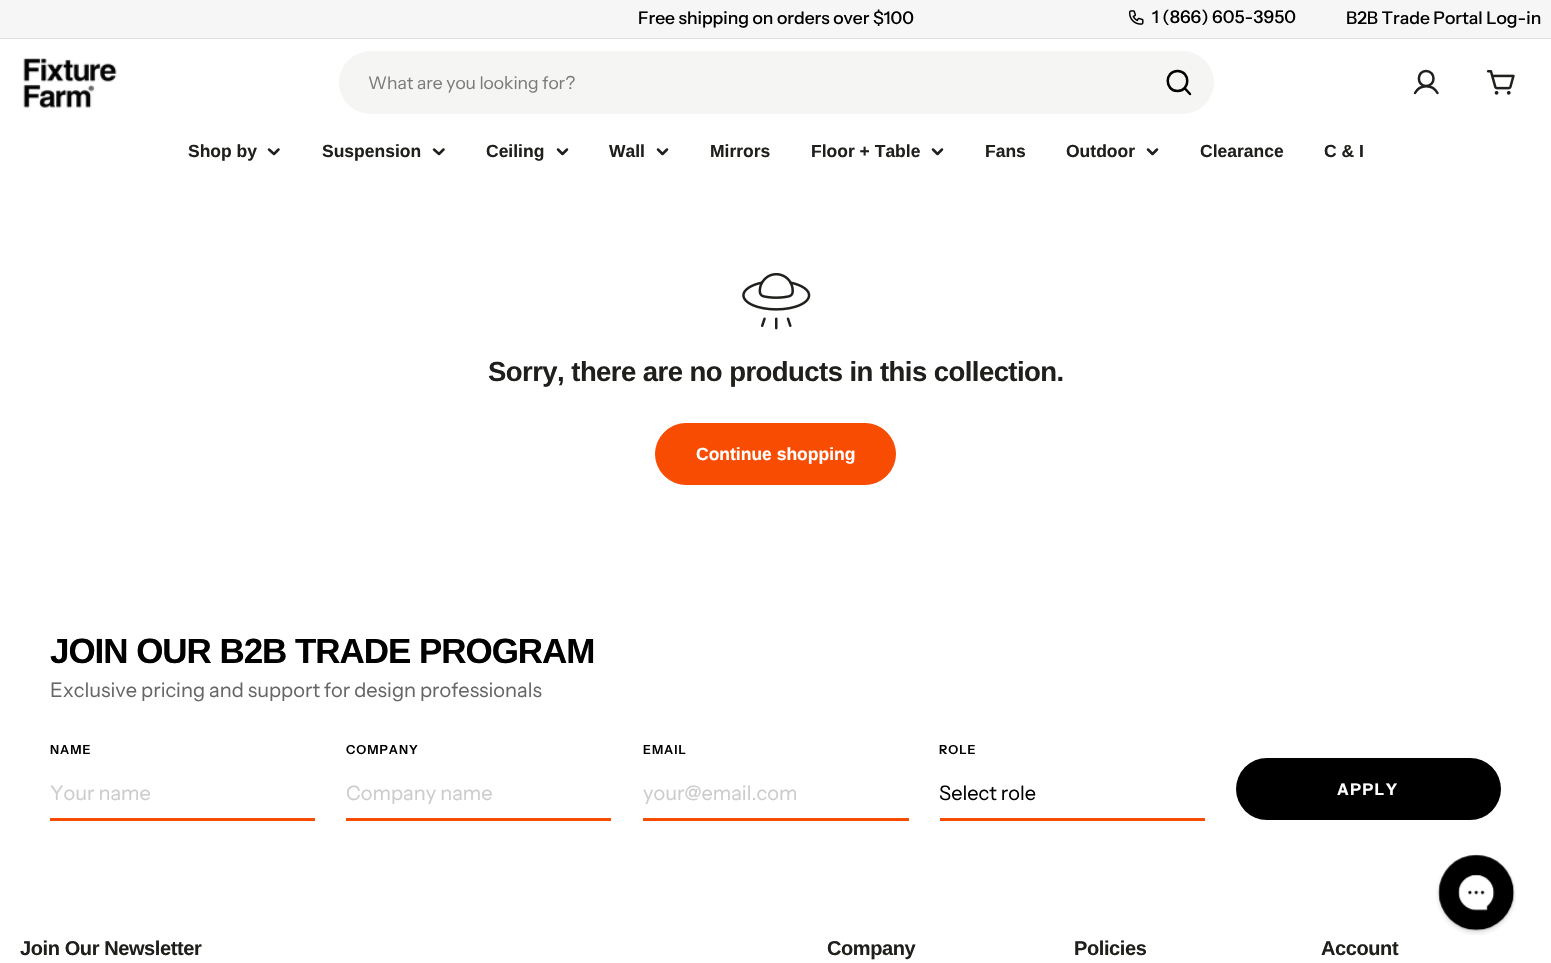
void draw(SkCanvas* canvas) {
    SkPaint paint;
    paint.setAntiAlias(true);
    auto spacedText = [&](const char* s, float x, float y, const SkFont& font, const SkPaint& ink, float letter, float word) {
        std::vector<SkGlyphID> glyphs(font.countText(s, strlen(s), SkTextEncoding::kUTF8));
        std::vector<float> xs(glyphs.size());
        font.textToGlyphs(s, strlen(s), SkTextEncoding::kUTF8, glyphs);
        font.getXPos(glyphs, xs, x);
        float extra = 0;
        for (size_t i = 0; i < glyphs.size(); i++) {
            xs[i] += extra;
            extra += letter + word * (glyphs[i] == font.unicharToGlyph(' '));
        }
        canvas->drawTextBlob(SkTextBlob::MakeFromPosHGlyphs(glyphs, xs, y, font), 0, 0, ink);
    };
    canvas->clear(0xFFFFFFFF);
    paint.setColor(0xFFF6F6F6);
    canvas->drawRect(SkRect::MakeXYWH(0, 0, 1551, 38), paint);
    paint.setColor(0xFFDDDDDD);
    canvas->drawRect(SkRect::MakeXYWH(0, 38, 1551, 1), paint);
    SkFont font1(fontMgr->matchFamilyStyle("Instrument Sans", SkFontStyle(500, SkFontStyle::kNormal_Width, SkFontStyle::kUpright_Slant)), 17.5f);
    font1.setSubpixel(true);
    paint.setColor(0xFF000000);
    canvas->drawString("Free shipping on orders over $100", 638, 24, font1, paint);
    canvas->drawImageRect(SkImages::DeferredFromEncodedData(SkData::MakeFromFileName("img1.png")), SkRect::MakeXYWH(1128, 10, 16, 15), SkSamplingOptions());
    canvas->drawString("1 (866) 605-3950", 1152, 23, font1, paint);
    canvas->drawString("B2B Trade Portal Log-in", 1346, 24, font1, paint);
    canvas->drawImageRect(SkImages::DeferredFromEncodedData(SkData::MakeFromFileName("img2.png")), SkRect::MakeXYWH(23, 58, 94, 50), SkSamplingOptions());
    paint.setColor(0xFFF5F5F4);
    canvas->drawRoundRect(SkRect::MakeXYWH(339, 51, 875, 63), 31.5f, 31.5f, paint);
    SkFont font2(fontMgr->matchFamilyStyle("Instrument Sans", SkFontStyle::Normal()), 17.5f);
    font2.setSubpixel(true);
    paint.setColor(0xFF7B7B7A);
    canvas->drawString("What are you looking for?", 368, 89, font2, paint);
    paint.setStyle(SkPaint::kStroke_Style);
    paint.setStrokeWidth(2.5f);
    paint.setStrokeCap(SkPaint::kRound_Cap);
    paint.setStrokeJoin(SkPaint::kRound_Join);
    paint.setColor(0xFF000000);
    canvas->drawPath(SkPathBuilder().moveTo(1177.5f, 91).cubicTo(1190.5f, 91, 1190.5f, 71, 1177.5f, 71).cubicTo(1164.5f, 71, 1164.5f, 91, 1177.5f, 91).close().moveTo(1184.5f, 88).lineTo(1190, 94).detach(), paint);
    paint.setColor(0xFF1F1F1C);
    canvas->drawPath(SkPathBuilder().moveTo(1426, 86).cubicTo(1436, 86, 1436, 71, 1426, 71).cubicTo(1416.5f, 71, 1416.5f, 86, 1426, 86).close().moveTo(1415, 93).cubicTo(1420, 84, 1432.5f, 84, 1437.5f, 93).detach(), paint);
    canvas->drawImageRect(SkImages::DeferredFromEncodedData(SkData::MakeFromFileName("img3.png")), SkRect::MakeXYWH(1486, 70, 29, 25), SkSamplingOptions());
    SkFont font3(fontMgr->matchFamilyStyle("Liberation Sans", SkFontStyle::Bold()), 17.5f);
    font3.setSubpixel(true);
    paint.setStyle(SkPaint::kFill_Style);
    canvas->drawString("Shop by", 188, 157, font3, paint);
    paint.setStyle(SkPaint::kStroke_Style);
    canvas->drawPath(SkPathBuilder().moveTo(278.5f, 149.5f).lineTo(274, 154).lineTo(269, 149.5f).detach(), paint);
    paint.setStyle(SkPaint::kFill_Style);
    canvas->drawString("Suspension", 322, 157, font3, paint);
    paint.setStyle(SkPaint::kStroke_Style);
    canvas->drawPath(SkPathBuilder().moveTo(443.5f, 149.5f).lineTo(439, 154).lineTo(434, 149.5f).detach(), paint);
    paint.setStyle(SkPaint::kFill_Style);
    canvas->drawString("Ceiling", 486, 157, font3, paint);
    paint.setStyle(SkPaint::kStroke_Style);
    canvas->drawPath(SkPathBuilder().moveTo(567, 149.5f).lineTo(562.5f, 154).lineTo(558, 149.5f).detach(), paint);
    paint.setStyle(SkPaint::kFill_Style);
    canvas->drawString("Wall", 609, 157, font3, paint);
    paint.setStyle(SkPaint::kStroke_Style);
    canvas->drawPath(SkPathBuilder().moveTo(667, 149.5f).lineTo(662.5f, 154).lineTo(658, 149.5f).detach(), paint);
    paint.setStyle(SkPaint::kFill_Style);
    canvas->drawString("Mirrors", 710, 157, font3, paint);
    canvas->drawString("Floor + Table", 811, 157, font3, paint);
    paint.setStyle(SkPaint::kStroke_Style);
    canvas->drawPath(SkPathBuilder().moveTo(942, 149.5f).lineTo(937.5f, 154).lineTo(933, 149.5f).detach(), paint);
    paint.setStyle(SkPaint::kFill_Style);
    canvas->drawString("Fans", 985, 157, font3, paint);
    canvas->drawString("Outdoor", 1066, 157, font3, paint);
    paint.setStyle(SkPaint::kStroke_Style);
    canvas->drawPath(SkPathBuilder().moveTo(1157, 149.5f).lineTo(1152.5f, 154).lineTo(1148, 149.5f).detach(), paint);
    paint.setStyle(SkPaint::kFill_Style);
    canvas->drawString("Clearance", 1200, 157, font3, paint);
    canvas->drawString("C & I", 1324, 157, font3, paint);
    canvas->drawImageRect(SkImages::DeferredFromEncodedData(SkData::MakeFromFileName("img4.png")), SkRect::MakeXYWH(742, 273, 69, 57), SkSamplingOptions());
    SkFont font4(fontMgr->matchFamilyStyle("Liberation Sans", SkFontStyle::Bold()), 27.5f);
    font4.setSubpixel(true);
    spacedText("Sorry, there are no products in this collection.", 488, 381, font4, paint, -0.55f, 0);
    paint.setColor(0xFFF94C03);
    canvas->drawRoundRect(SkRect::MakeXYWH(655.5f, 423.5f, 240, 61), 30.5f, 30.5f, paint);
    paint.setStyle(SkPaint::kStroke_Style);
    paint.setStrokeWidth(1);
    paint.setStrokeCap(SkPaint::kButt_Cap);
    paint.setStrokeJoin(SkPaint::kMiter_Join);
    canvas->drawRoundRect(SkRect::MakeXYWH(655.5f, 423.5f, 240, 61), 30.5f, 30.5f, paint);
    paint.setStyle(SkPaint::kFill_Style);
    paint.setColor(0xFFFFFFFF);
    canvas->drawString("Continue shopping", 696, 460, font3, paint);
    SkFont font5(fontMgr->matchFamilyStyle("Liberation Sans", SkFontStyle::Bold()), 35);
    font5.setSubpixel(true);
    paint.setColor(0xFF000000);
    spacedText("JOIN OUR B2B TRADE PROGRAM", 50, 663, font5, paint, -1.05f, 0);
    SkFont font6(fontMgr->matchFamilyStyle("Instrument Sans", SkFontStyle::Normal()), 20);
    font6.setSubpixel(true);
    paint.setColor(0xFF666666);
    canvas->drawString("Exclusive pricing and support for design professionals", 50, 697, font6, paint);
    SkFont font7(fontMgr->matchFamilyStyle("Instrument Sans", SkFontStyle(600, SkFontStyle::kNormal_Width, SkFontStyle::kUpright_Slant)), 12.5f);
    font7.setSubpixel(true);
    paint.setColor(0xFF000000);
    spacedText("NAME", 50, 754, font7, paint, 1, 0);
    paint.setColor(0xFFF94C03);
    canvas->drawRect(SkRect::MakeXYWH(50, 818, 265, 3), paint);
    paint.setColor(0xFFCCCCCC);
    canvas->drawString("Your name", 50, 800, font6, paint);
    paint.setColor(0xFF000000);
    spacedText("COMPANY", 346, 754, font7, paint, 1, 0);
    paint.setColor(0xFFF94C03);
    canvas->drawRect(SkRect::MakeXYWH(346, 818, 265, 3), paint);
    paint.setColor(0xFFCCCCCC);
    canvas->drawString("Company name", 346, 800, font6, paint);
    paint.setColor(0xFF000000);
    spacedText("EMAIL", 643, 754, font7, paint, 1, 0);
    paint.setColor(0xFFF94C03);
    canvas->drawRect(SkRect::MakeXYWH(643, 818, 266, 3), paint);
    paint.setColor(0xFFCCCCCC);
    canvas->drawString("your@email.com", 643, 800, font6, paint);
    paint.setColor(0xFF000000);
    spacedText("ROLE", 939, 754, font7, paint, 1, 0);
    paint.setColor(0xFFF94C03);
    canvas->drawRect(SkRect::MakeXYWH(940, 818, 265, 3), paint);
    paint.setColor(0xFF000000);
    canvas->drawString("Select role", 939, 800, font6, paint);
    canvas->drawRoundRect(SkRect::MakeXYWH(1236, 758, 265, 62), 31, 31, paint);
    SkFont font8(fontMgr->matchFamilyStyle("Instrument Sans", SkFontStyle::Bold()), 16);
    font8.setSubpixel(true);
    paint.setColor(0xFFFFFFFF);
    spacedText("APPLY", 1337, 795, font8, paint, 1.5f, 0);
    SkFont font9(fontMgr->matchFamilyStyle("Liberation Sans", SkFontStyle::Bold()), 20);
    font9.setSubpixel(true);
    paint.setColor(0xFF1F1F1C);
    spacedText("Join Our Newsletter", 20, 955, font9, paint, -0.4f, 0);
    spacedText("Company", 827, 955, font9, paint, -0.4f, 0);
    spacedText("Policies", 1074, 955, font9, paint, -0.4f, 0);
    spacedText("Account", 1321, 955, font9, paint, -0.4f, 0);
    canvas->drawImageRect(SkImages::DeferredFromEncodedData(SkData::MakeFromFileName("img5.png")), SkRect::MakeXYWH(1436, 854, 80, 81), SkSamplingOptions());
}
